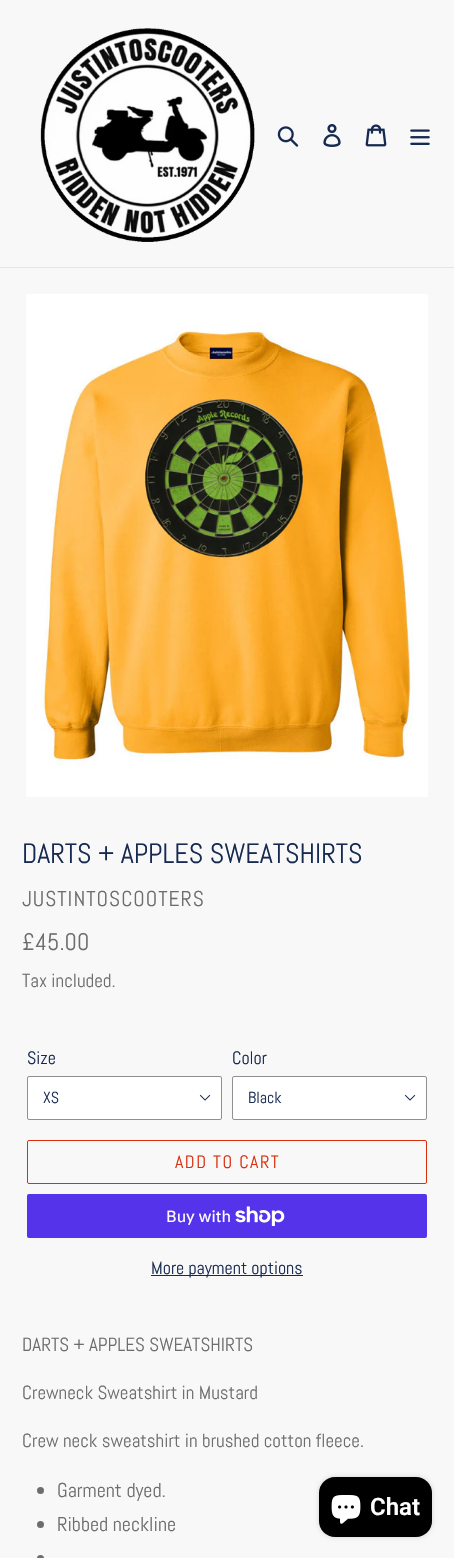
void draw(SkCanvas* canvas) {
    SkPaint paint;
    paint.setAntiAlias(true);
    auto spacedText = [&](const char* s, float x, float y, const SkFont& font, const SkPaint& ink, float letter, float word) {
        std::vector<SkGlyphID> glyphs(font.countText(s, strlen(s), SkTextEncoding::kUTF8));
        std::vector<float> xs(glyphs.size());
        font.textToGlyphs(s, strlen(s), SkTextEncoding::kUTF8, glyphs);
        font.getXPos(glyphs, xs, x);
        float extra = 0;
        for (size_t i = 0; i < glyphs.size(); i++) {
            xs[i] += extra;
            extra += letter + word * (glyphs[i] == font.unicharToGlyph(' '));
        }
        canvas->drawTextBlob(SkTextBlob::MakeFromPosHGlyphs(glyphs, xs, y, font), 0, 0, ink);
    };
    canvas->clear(0xFFF8F8F8);
    paint.setColor(0xFFE4E4E4);
    canvas->drawRect(SkRect::MakeXYWH(0, 267, 454, 1), paint);
    canvas->drawImageRect(SkImages::DeferredFromEncodedData(SkData::MakeFromFileName("img1.png")), SkRect::MakeXYWH(40, 28, 215, 214), SkSamplingOptions());
    canvas->drawImageRect(SkImages::DeferredFromEncodedData(SkData::MakeFromFileName("img2.png")), SkRect::MakeXYWH(277, 126, 22, 21), SkSamplingOptions());
    canvas->drawImageRect(SkImages::DeferredFromEncodedData(SkData::MakeFromFileName("img3.png")), SkRect::MakeXYWH(323, 124, 18, 23), SkSamplingOptions());
    canvas->drawImageRect(SkImages::DeferredFromEncodedData(SkData::MakeFromFileName("img4.png")), SkRect::MakeXYWH(365, 124, 22, 23), SkSamplingOptions());
    canvas->drawImageRect(SkImages::DeferredFromEncodedData(SkData::MakeFromFileName("img5.png")), SkRect::MakeXYWH(410, 129, 20, 16), SkSamplingOptions());
    canvas->drawImageRect(SkImages::DeferredFromEncodedData(SkData::MakeFromFileName("img6.png")), SkRect::MakeXYWH(26, 294, 402, 503), SkSamplingOptions());
    SkFont font1(fontMgr->matchFamilyStyle("Abel", SkFontStyle::Normal()), 28);
    font1.setSubpixel(true);
    paint.setColor(0xFF162950);
    canvas->drawString("DARTS + APPLES SWEATSHIRTS", 22, 863, font1, paint);
    SkFont font2(fontMgr->matchFamilyStyle("Abel", SkFontStyle::Normal()), 21.4f);
    font2.setSubpixel(true);
    paint.setColor(0xFF6D6D6D);
    spacedText("JUSTINTOSCOOTERS", 22, 906, font2, paint, 1, 0);
    SkFont font3(fontMgr->matchFamilyStyle("Abel", SkFontStyle::Normal()), 24);
    font3.setSubpixel(true);
    canvas->drawString("£45.00", 22, 950, font3, paint);
    SkFont font4(fontMgr->matchFamilyStyle("Abel", SkFontStyle::Normal()), 19);
    font4.setSubpixel(true);
    canvas->drawString("Tax included.", 22, 987, font4, paint);
    SkFont font5(fontMgr->matchFamilyStyle("Abel", SkFontStyle::Normal()), 18);
    font5.setSubpixel(true);
    paint.setColor(0xFF162950);
    canvas->drawString("Size", 27, 1064, font5, paint);
    paint.setColor(0xFFFFFFFF);
    canvas->drawRoundRect(SkRect::MakeXYWH(27, 1076, 195, 44), 2, 2, paint);
    canvas->drawImageRect(SkImages::DeferredFromEncodedData(SkData::MakeFromFileName("img7.png")), SkRect::MakeXYWH(199, 1094, 12, 7), SkSamplingOptions());
    paint.setStyle(SkPaint::kStroke_Style);
    paint.setStrokeWidth(1);
    paint.setColor(0xFF909090);
    canvas->drawRoundRect(SkRect::MakeXYWH(27.5f, 1076.5f, 194, 43), 1.5f, 1.5f, paint);
    SkFont font6(fontMgr->matchFamilyStyle("Abel", SkFontStyle::Normal()), 16);
    font6.setSubpixel(true);
    paint.setStyle(SkPaint::kFill_Style);
    paint.setColor(0xFF162950);
    canvas->drawString("XS", 43, 1103, font6, paint);
    canvas->drawString("Color", 232, 1064, font5, paint);
    paint.setColor(0xFFFFFFFF);
    canvas->drawRoundRect(SkRect::MakeXYWH(232, 1076, 195, 44), 2, 2, paint);
    canvas->drawImageRect(SkImages::DeferredFromEncodedData(SkData::MakeFromFileName("img7.png")), SkRect::MakeXYWH(404, 1094, 12, 7), SkSamplingOptions());
    paint.setStyle(SkPaint::kStroke_Style);
    paint.setColor(0xFF909090);
    canvas->drawRoundRect(SkRect::MakeXYWH(232.5f, 1076.5f, 194, 43), 1.5f, 1.5f, paint);
    paint.setStyle(SkPaint::kFill_Style);
    paint.setColor(0xFF162950);
    canvas->drawString("Black", 248, 1103, font6, paint);
    paint.setStyle(SkPaint::kStroke_Style);
    paint.setColor(0xFFDA2F0C);
    canvas->drawRoundRect(SkRect::MakeXYWH(27.5f, 1140.5f, 399, 43), 1.5f, 1.5f, paint);
    paint.setStyle(SkPaint::kFill_Style);
    spacedText("ADD TO CART", 175, 1168, font5, paint, 1.5f, 0);
    paint.setColor(0xFF5433EB);
    canvas->drawRoundRect(SkRect::MakeXYWH(27, 1194, 400, 44), 2, 2, paint);
    SkFont font7(fontMgr->matchFamilyStyle("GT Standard", SkFontStyle::Normal()), 16);
    font7.setSubpixel(true);
    paint.setColor(0xFFFFFFFF);
    canvas->drawString("Buy with", 166, 1222, font7, paint);
    canvas->drawImageRect(SkImages::DeferredFromEncodedData(SkData::MakeFromFileName("img8.png")), SkRect::MakeXYWH(235, 1206, 50, 20), SkSamplingOptions());
    paint.setColor(0xFF162950);
    canvas->drawRect(SkRect::MakeXYWH(151, 1275, 152, 1), paint);
    canvas->drawString("More payment options", 151, 1274, font5, paint);
    paint.setColor(0xFF6D6D6D);
    canvas->drawString("DARTS + APPLES SWEATSHIRTS", 22, 1351, font4, paint);
    canvas->drawString("Crewneck Sweatshirt in Mustard", 22, 1399, font4, paint);
    canvas->drawString("Crew neck sweatshirt in brushed cotton fleece.", 22, 1447, font4, paint);
    canvas->drawCircle(40.5f, 1490.5f, 3.5f, paint);
    SkFont font8(fontMgr->matchFamilyStyle("Abel", SkFontStyle::Normal()), 20);
    font8.setSubpixel(true);
    canvas->drawString("Garment dyed.", 57, 1497, font8, paint);
    canvas->drawCircle(40.5f, 1524.5f, 3.5f, paint);
    canvas->drawString("Ribbed neckline", 57, 1531, font8, paint);
    canvas->drawCircle(40.5f, 1558.5f, 3.5f, paint);
    paint.setColor(0x26000000);
    paint.setMaskFilter(SkMaskFilter::MakeBlur(kNormal_SkBlurStyle, 2.5f));
    canvas->drawRoundRect(SkRect::MakeXYWH(319, 1477, 113, 60), 16, 16, paint);
    paint.setMaskFilter(nullptr);
    paint.setColor(0xFF000000);
    canvas->drawRoundRect(SkRect::MakeXYWH(319, 1477, 113, 60), 16, 16, paint);
    canvas->drawImageRect(SkImages::DeferredFromEncodedData(SkData::MakeFromFileName("img9.png")), SkRect::MakeXYWH(331, 1495, 30, 29), SkSamplingOptions());
    SkFont font9(fontMgr->matchFamilyStyle("Roboto", SkFontStyle(600, SkFontStyle::kNormal_Width, SkFontStyle::kUpright_Slant)), 24);
    font9.setSubpixel(true);
    paint.setColor(0xFFFFFFFF);
    canvas->drawString("Chat", 370, 1515, font9, paint);
}
